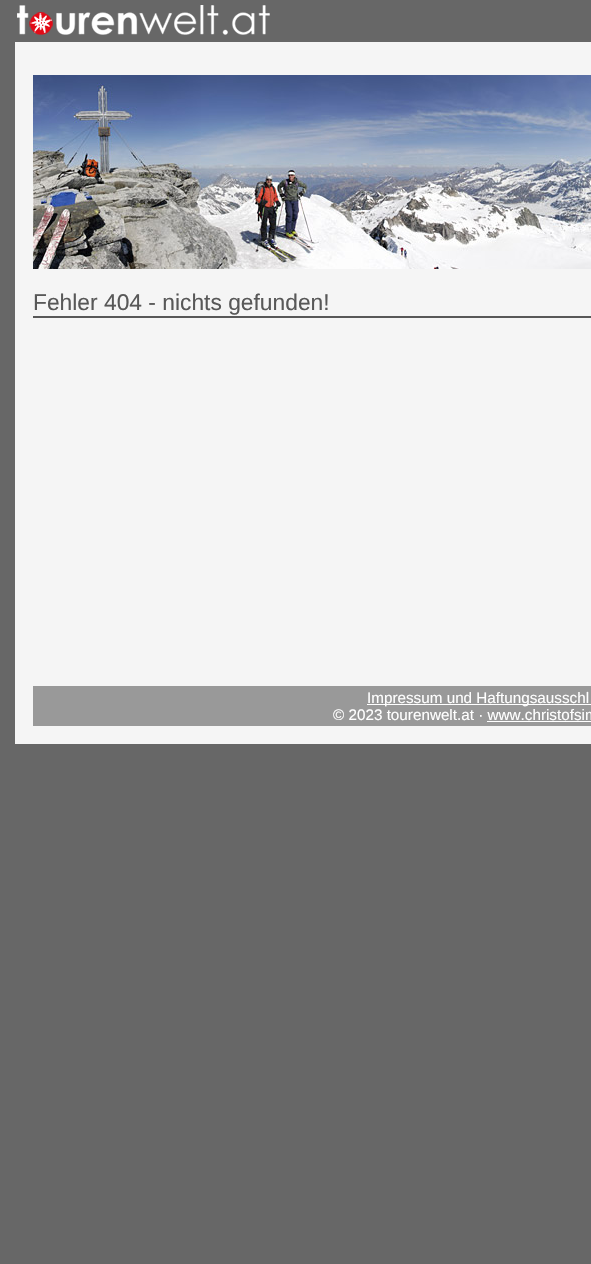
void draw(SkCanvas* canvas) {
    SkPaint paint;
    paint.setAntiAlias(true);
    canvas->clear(0xFF676767);
    canvas->drawImageRect(SkImages::DeferredFromEncodedData(SkData::MakeFromFileName("img1.png")), SkRect::MakeXYWH(17, 5, 253, 30), SkSamplingOptions());
    paint.setColor(0xFFF5F5F5);
    canvas->drawRect(SkRect::MakeXYWH(15, 42, 576, 702), paint);
    canvas->drawImageRect(SkImages::DeferredFromEncodedData(SkData::MakeFromFileName("img2.png")), SkRect::MakeXYWH(33, 75, 558, 194), SkSamplingOptions());
    paint.setColor(0xFF585858);
    canvas->drawRect(SkRect::MakeXYWH(33, 316, 558, 2), paint);
    SkFont font1(fontMgr->matchFamilyStyle("Liberation Sans", SkFontStyle::Normal()), 22.8f);
    font1.setSubpixel(true);
    canvas->drawString("Fehler 404 - nichts gefunden!", 33, 310, font1, paint);
    paint.setColor(0xFF999999);
    canvas->drawRect(SkRect::MakeXYWH(33, 686, 558, 40), paint);
    paint.setColor(0xFFFFFFFF);
    canvas->drawRect(SkRect::MakeXYWH(367, 704, 224, 1), paint);
    SkFont font2(fontMgr->matchFamilyStyle("Liberation Sans", SkFontStyle::Normal()), 15.25f);
    font2.setSubpixel(true);
    canvas->drawString("Impressum und Haftungsausschl", 367, 703, font2, paint);
    canvas->drawString("© 2023 tourenwelt.at · www.christofsim", 333, 720, font2, paint);
    canvas->drawRect(SkRect::MakeXYWH(487, 721, 104, 1), paint);
}
